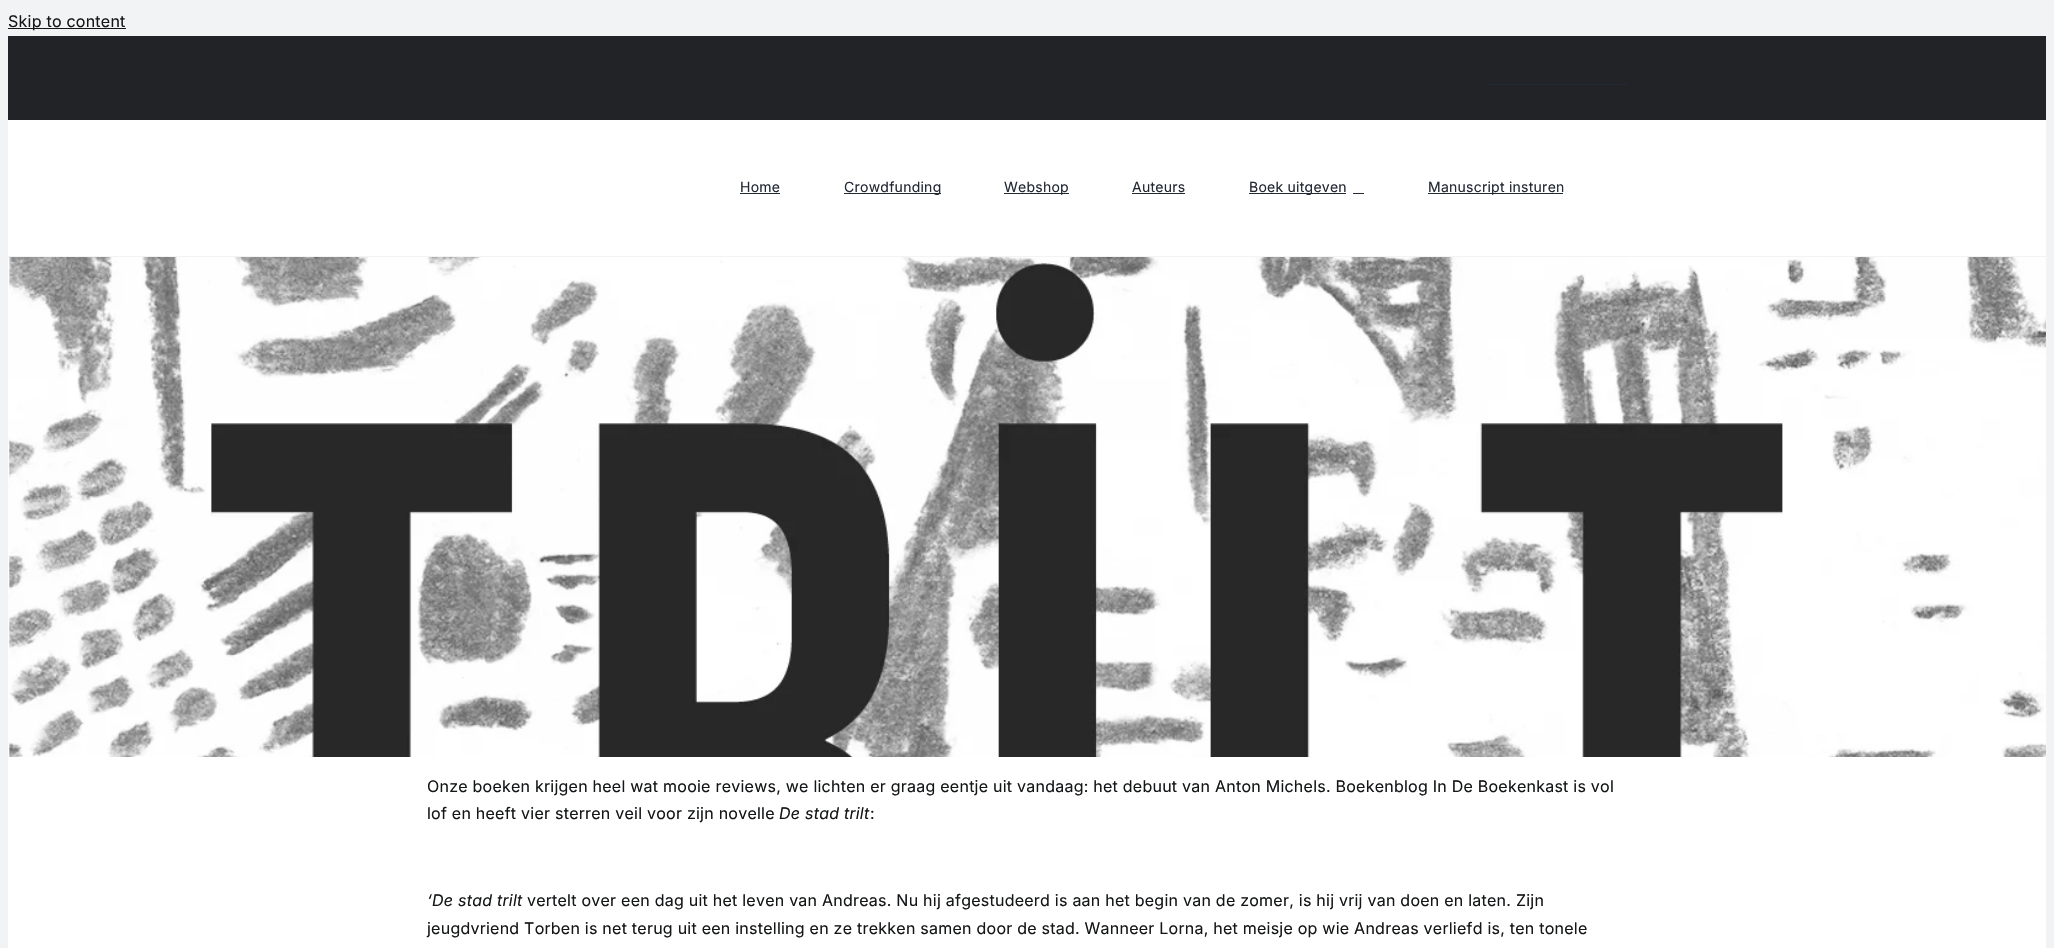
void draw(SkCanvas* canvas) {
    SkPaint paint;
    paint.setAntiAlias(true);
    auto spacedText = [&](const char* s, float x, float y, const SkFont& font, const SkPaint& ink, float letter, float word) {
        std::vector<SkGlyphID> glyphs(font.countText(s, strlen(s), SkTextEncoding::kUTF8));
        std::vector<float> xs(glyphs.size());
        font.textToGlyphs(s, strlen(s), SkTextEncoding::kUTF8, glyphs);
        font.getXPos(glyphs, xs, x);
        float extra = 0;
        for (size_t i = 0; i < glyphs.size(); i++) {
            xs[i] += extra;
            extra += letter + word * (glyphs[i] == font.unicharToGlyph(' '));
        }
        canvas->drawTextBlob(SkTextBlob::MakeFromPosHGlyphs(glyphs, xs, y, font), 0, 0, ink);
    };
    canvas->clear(0xFFF2F3F5);
    paint.setColor(0xFF141617);
    canvas->drawRect(SkRect::MakeXYWH(8, 28, 118, 1), paint);
    SkFont font1(fontMgr->matchFamilyStyle("Inter", SkFontStyle::Normal()), 16);
    font1.setSubpixel(true);
    spacedText("Skip to content", 8, 27, font1, paint, 0.24f, 0);
    paint.setColor(0xFFFFFFFF);
    canvas->drawRect(SkRect::MakeXYWH(8, 120, 2038, 828), paint);
    paint.setColor(0xFF212326);
    canvas->drawRect(SkRect::MakeXYWH(8, 36, 2038, 84), paint);
    paint.setColor(0xFF212934);
    canvas->drawRect(SkRect::MakeXYWH(1486, 84, 141, 1), paint);
    paint.setColor(0xFFF2F3F5);
    canvas->drawRect(SkRect::MakeXYWH(8, 256, 2038, 1), paint);
    SkFont font2(fontMgr->matchFamilyStyle("Inter", SkFontStyle::Normal()), 14);
    font2.setSubpixel(true);
    paint.setColor(0xFF212934);
    spacedText("Home", 740, 192, font2, paint, 0.25f, 0);
    canvas->drawRect(SkRect::MakeXYWH(740, 193, 40, 1), paint);
    canvas->drawRect(SkRect::MakeXYWH(844, 193, 97, 1), paint);
    spacedText("Crowdfunding", 844, 192, font2, paint, 0.25f, 0);
    canvas->drawRect(SkRect::MakeXYWH(1004, 193, 65, 1), paint);
    spacedText("Webshop", 1004, 192, font2, paint, 0.25f, 0);
    spacedText("Auteurs", 1132, 192, font2, paint, 0.25f, 0);
    canvas->drawRect(SkRect::MakeXYWH(1132, 193, 53, 1), paint);
    canvas->drawRect(SkRect::MakeXYWH(1249, 193, 97, 1), paint);
    spacedText("Boek uitgeven", 1249, 192, font2, paint, 0.25f, 0);
    canvas->drawRect(SkRect::MakeXYWH(1353, 193, 11, 1), paint);
    canvas->drawRect(SkRect::MakeXYWH(1428, 193, 135, 1), paint);
    spacedText("Manuscript insturen", 1428, 192, font2, paint, 0.25f, 0);
    canvas->drawImageRect(SkImages::DeferredFromEncodedData(SkData::MakeFromFileName("img1.png")), SkRect::MakeXYWH(8, 257, 2038, 500), SkSamplingOptions());
    paint.setColor(0xFF141617);
    spacedText("Onze boeken krijgen heel wat mooie reviews, we lichten er graag eentje uit vandaag: het debuut van Anton Michels. Boekenblog In De Boekenkast is vol", 427, 792, font1, paint, 0.24f, 0);
    spacedText("lof en heeft vier sterren veil voor zijn novelle", 427, 819, font1, paint, 0.24f, 0);
    SkFont font3(fontMgr->matchFamilyStyle("Inter", SkFontStyle::Italic()), 16);
    font3.setSubpixel(true);
    spacedText("De stad trilt", 779, 819, font3, paint, 0.24f, 0);
    spacedText(":", 870, 819, font1, paint, 0.24f, 0);
    spacedText("‘De stad trilt", 427, 906, font3, paint, 0.24f, 0);
    spacedText("vertelt over een dag uit het leven van Andreas. Nu hij afgestudeerd is aan het begin van de zomer, is hij vrij van doen en laten. Zijn", 527, 906, font1, paint, 0.24f, 0);
    spacedText("jeugdvriend Torben is net terug uit een instelling en ze trekken samen door de stad. Wanneer Lorna, het meisje op wie Andreas verliefd is, ten tonele", 427, 934, font1, paint, 0.24f, 0);
}
